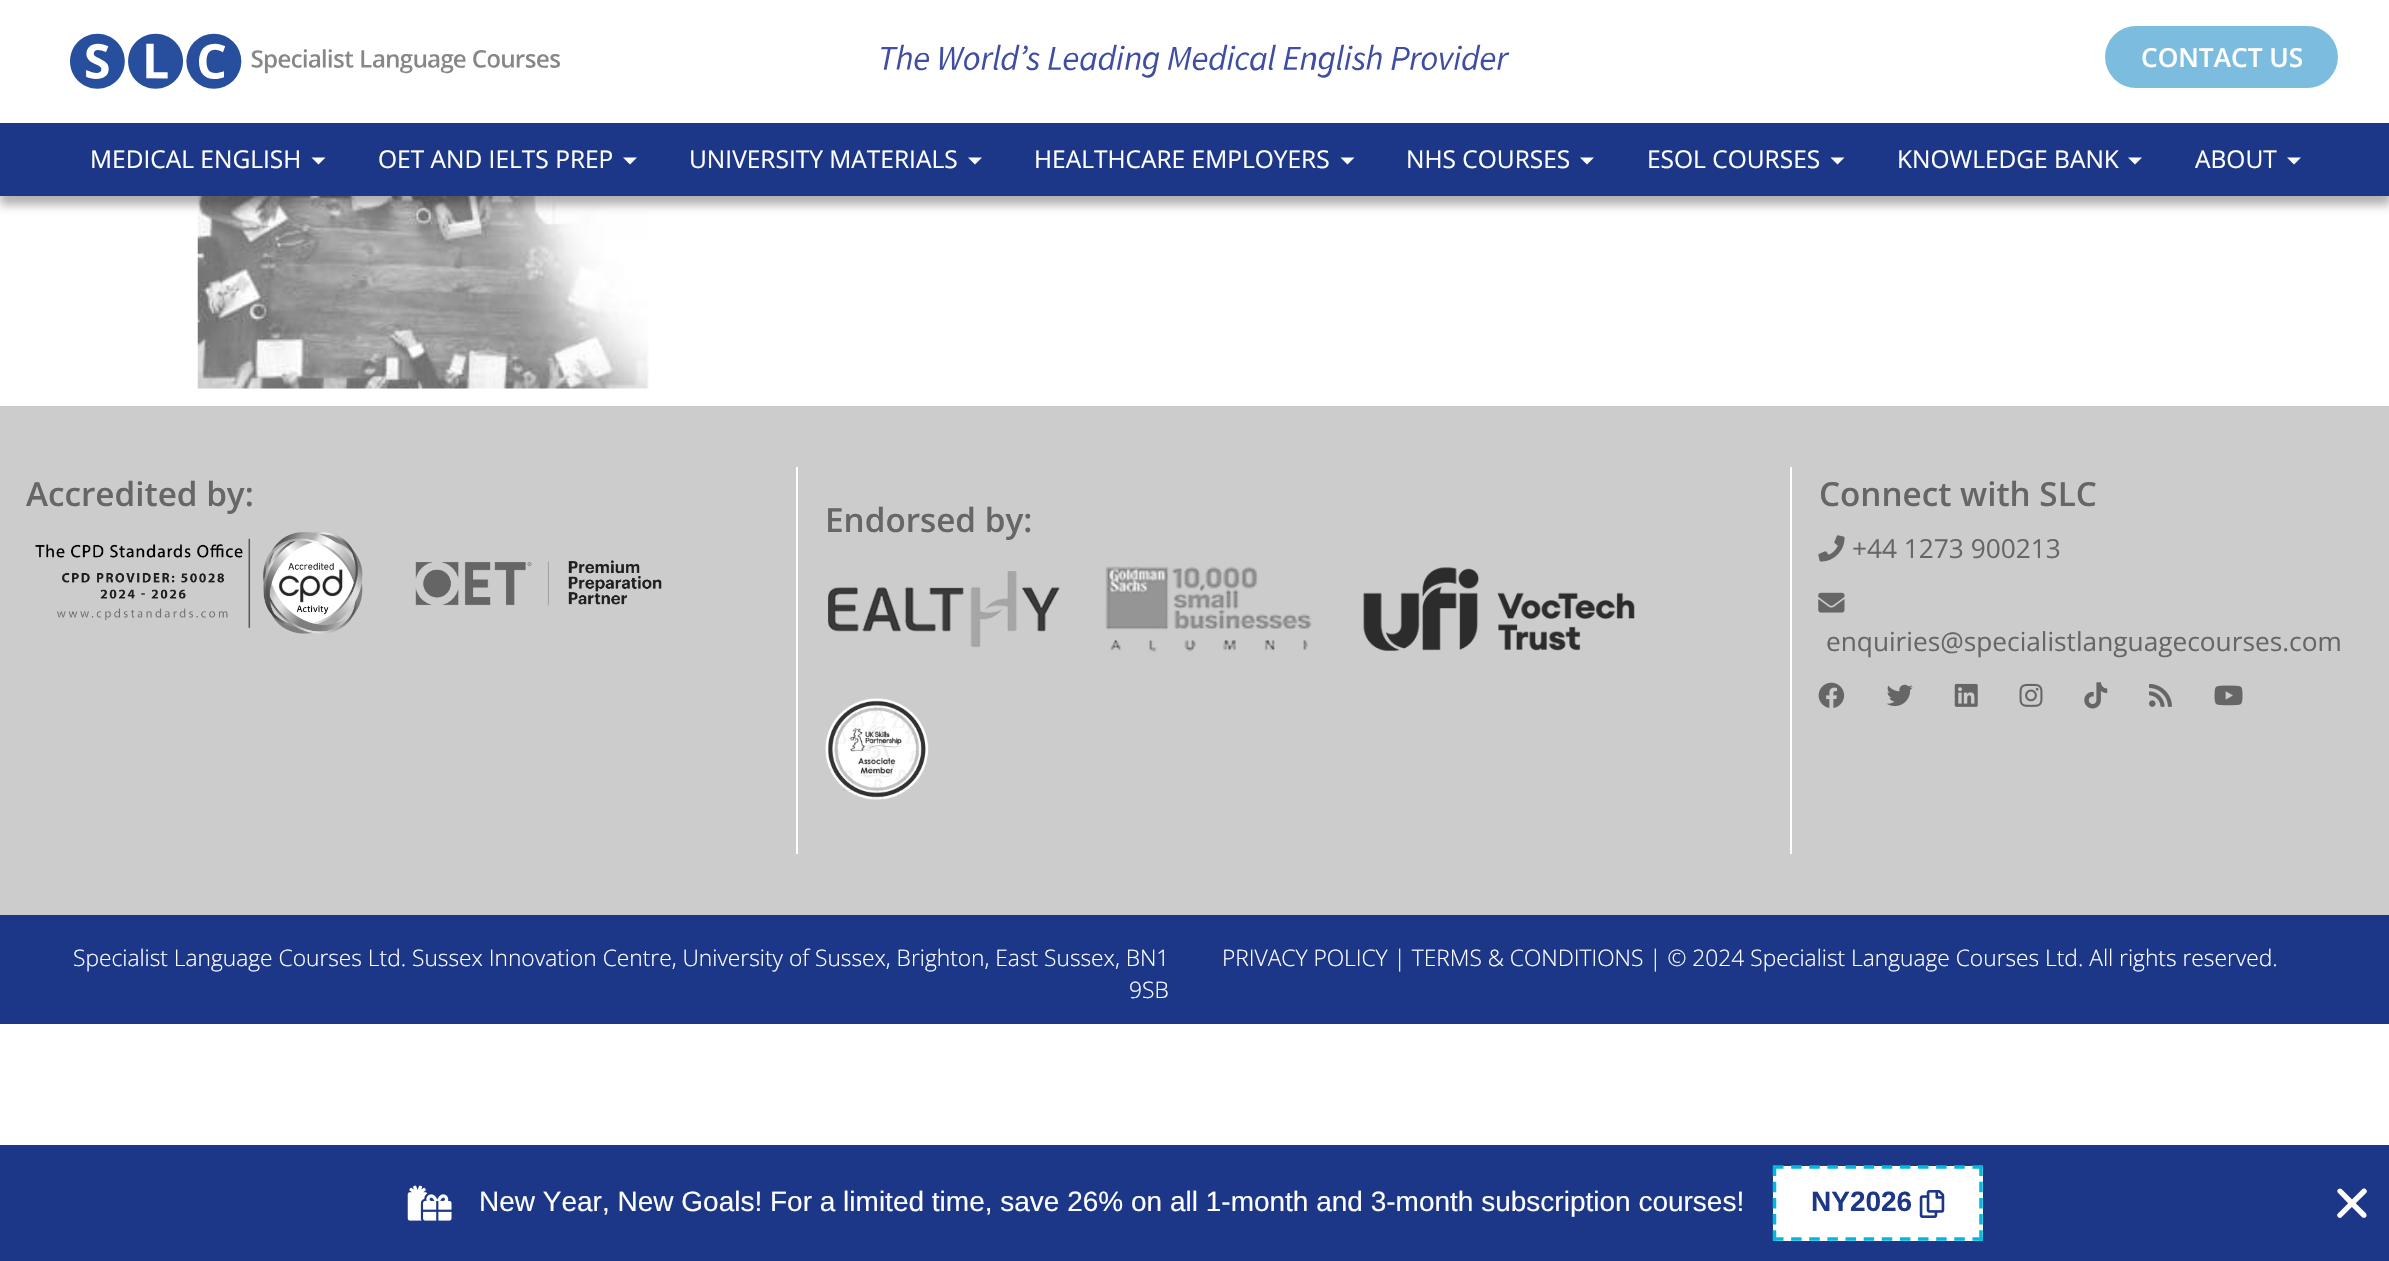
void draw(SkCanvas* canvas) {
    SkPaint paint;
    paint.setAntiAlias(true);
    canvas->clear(0xFFFFFFFF);
    canvas->drawImageRect(SkImages::DeferredFromEncodedData(SkData::MakeFromFileName("img1.png")), SkRect::MakeXYWH(69, 33, 491, 56), SkSamplingOptions());
    canvas->drawImageRect(SkImages::DeferredFromEncodedData(SkData::MakeFromFileName("img2.png")), SkRect::MakeXYWH(881, 44, 629, 34), SkSamplingOptions());
    paint.setColor(0xFF7CBDDF);
    canvas->drawRoundRect(SkRect::MakeXYWH(2105, 26, 233, 62), 31, 31, paint);
    SkFont font1(fontMgr->matchFamilyStyle("Open Sans", SkFontStyle(600, SkFontStyle::kNormal_Width, SkFontStyle::kUpright_Slant)), 26.25f);
    font1.setSubpixel(true);
    paint.setColor(0xFFFFFFFF);
    canvas->drawString("CONTACT US", 2141, 67, font1, paint);
    canvas->drawImageRect(SkImages::DeferredFromEncodedData(SkData::MakeFromFileName("img3.png")), SkRect::MakeXYWH(197, 196, 452, 193), SkSamplingOptions());
    paint.setColor(0x4D000000);
    paint.setMaskFilter(SkMaskFilter::MakeBlur(kNormal_SkBlurStyle, 4.5f));
    canvas->drawRect(SkRect::MakeXYWH(0, 131, 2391, 74), paint);
    paint.setMaskFilter(nullptr);
    paint.setColor(0xFF1C3788);
    canvas->drawRect(SkRect::MakeXYWH(0, 123, 2389, 73), paint);
    SkFont font2(fontMgr->matchFamilyStyle("Open Sans", SkFontStyle::Normal()), 24.5f);
    font2.setSubpixel(true);
    paint.setColor(0xFFFFFFFF);
    canvas->drawString("MEDICAL ENGLISH", 90, 168, font2, paint);
    canvas->drawPath(SkPathBuilder().moveTo(311.5f, 157.5f).lineTo(325.5f, 157.5f).lineTo(318.5f, 164.5f).close().detach(), paint);
    canvas->drawString("OET AND IELTS PREP", 378, 168, font2, paint);
    canvas->drawPath(SkPathBuilder().moveTo(623, 157.5f).lineTo(637, 157.5f).lineTo(630, 164.5f).close().detach(), paint);
    canvas->drawString("UNIVERSITY MATERIALS", 689, 168, font2, paint);
    canvas->drawPath(SkPathBuilder().moveTo(968, 157.5f).lineTo(982, 157.5f).lineTo(975, 164.5f).close().detach(), paint);
    canvas->drawString("HEALTHCARE EMPLOYERS", 1034, 168, font2, paint);
    canvas->drawPath(SkPathBuilder().moveTo(1340.5f, 157.5f).lineTo(1354.5f, 157.5f).lineTo(1347.5f, 164.5f).close().detach(), paint);
    canvas->drawString("NHS COURSES", 1406, 168, font2, paint);
    canvas->drawPath(SkPathBuilder().moveTo(1580, 157.5f).lineTo(1594, 157.5f).lineTo(1587, 164.5f).close().detach(), paint);
    canvas->drawString("ESOL COURSES", 1647, 168, font2, paint);
    canvas->drawPath(SkPathBuilder().moveTo(1830.5f, 157.5f).lineTo(1844.5f, 157.5f).lineTo(1837.5f, 164.5f).close().detach(), paint);
    canvas->drawString("KNOWLEDGE BANK", 1897, 168, font2, paint);
    canvas->drawPath(SkPathBuilder().moveTo(2128, 157.5f).lineTo(2142, 157.5f).lineTo(2135, 164.5f).close().detach(), paint);
    canvas->drawString("ABOUT", 2195, 168, font2, paint);
    canvas->drawPath(SkPathBuilder().moveTo(2287, 157.5f).lineTo(2301, 157.5f).lineTo(2294, 164.5f).close().detach(), paint);
    paint.setColor(0xFFCCCCCC);
    canvas->drawRect(SkRect::MakeXYWH(0, 406, 2389, 509), paint);
    SkFont font3(fontMgr->matchFamilyStyle("Open Sans", SkFontStyle(600, SkFontStyle::kNormal_Width, SkFontStyle::kUpright_Slant)), 33.25f);
    font3.setSubpixel(true);
    paint.setColor(0xFF656666);
    canvas->drawString("Accredited by:", 26, 506, font3, paint);
    canvas->drawImageRect(SkImages::DeferredFromEncodedData(SkData::MakeFromFileName("img4.png")), SkRect::MakeXYWH(35, 532, 328, 102), SkSamplingOptions());
    canvas->drawImageRect(SkImages::DeferredFromEncodedData(SkData::MakeFromFileName("img5.png")), SkRect::MakeXYWH(415, 560, 247, 46), SkSamplingOptions());
    paint.setColor(0xFFFFFFFF);
    canvas->drawRect(SkRect::MakeXYWH(1790, 467, 2, 387), paint);
    canvas->drawRect(SkRect::MakeXYWH(796, 467, 2, 387), paint);
    paint.setColor(0xFF656666);
    canvas->drawString("Endorsed by:", 825, 532, font3, paint);
    canvas->drawImageRect(SkImages::DeferredFromEncodedData(SkData::MakeFromFileName("img6.png")), SkRect::MakeXYWH(828, 571, 232, 77), SkSamplingOptions());
    canvas->drawImageRect(SkImages::DeferredFromEncodedData(SkData::MakeFromFileName("img7.png")), SkRect::MakeXYWH(1105, 566, 207, 86), SkSamplingOptions());
    canvas->drawImageRect(SkImages::DeferredFromEncodedData(SkData::MakeFromFileName("img8.png")), SkRect::MakeXYWH(1363, 567, 272, 84), SkSamplingOptions());
    canvas->drawImageRect(SkImages::DeferredFromEncodedData(SkData::MakeFromFileName("img9.png")), SkRect::MakeXYWH(825, 698, 104, 102), SkSamplingOptions());
    canvas->drawString("Connect with SLC", 1819, 506, font3, paint);
    canvas->drawImageRect(SkImages::DeferredFromEncodedData(SkData::MakeFromFileName("img10.png")), SkRect::MakeXYWH(1818, 535, 27, 27), SkSamplingOptions());
    SkFont font4(fontMgr->matchFamilyStyle("Open Sans", SkFontStyle::Normal()), 26.25f);
    font4.setSubpixel(true);
    canvas->drawString("+44 1273 900213", 1852, 558, font4, paint);
    canvas->drawImageRect(SkImages::DeferredFromEncodedData(SkData::MakeFromFileName("img11.png")), SkRect::MakeXYWH(1818, 592, 27, 21), SkSamplingOptions());
    canvas->drawString("enquiries@specialistlanguagecourses.com", 1826, 651, font4, paint);
    canvas->drawImageRect(SkImages::DeferredFromEncodedData(SkData::MakeFromFileName("img12.png")), SkRect::MakeXYWH(1818, 682, 27, 26), SkSamplingOptions());
    canvas->drawImageRect(SkImages::DeferredFromEncodedData(SkData::MakeFromFileName("img13.png")), SkRect::MakeXYWH(1886, 684, 27, 23), SkSamplingOptions());
    canvas->drawImageRect(SkImages::DeferredFromEncodedData(SkData::MakeFromFileName("img14.png")), SkRect::MakeXYWH(1954, 683, 24, 24), SkSamplingOptions());
    canvas->drawImageRect(SkImages::DeferredFromEncodedData(SkData::MakeFromFileName("img15.png")), SkRect::MakeXYWH(2019, 683, 24, 24), SkSamplingOptions());
    canvas->drawImageRect(SkImages::DeferredFromEncodedData(SkData::MakeFromFileName("img16.png")), SkRect::MakeXYWH(2084, 682, 24, 27), SkSamplingOptions());
    canvas->drawImageRect(SkImages::DeferredFromEncodedData(SkData::MakeFromFileName("img17.png")), SkRect::MakeXYWH(2149, 684, 23, 23), SkSamplingOptions());
    canvas->drawImageRect(SkImages::DeferredFromEncodedData(SkData::MakeFromFileName("img18.png")), SkRect::MakeXYWH(2214, 685, 29, 21), SkSamplingOptions());
    paint.setColor(0xFF1C3788);
    canvas->drawRect(SkRect::MakeXYWH(0, 915, 2389, 109), paint);
    SkFont font5(fontMgr->matchFamilyStyle("Open Sans", SkFontStyle(300, SkFontStyle::kNormal_Width, SkFontStyle::kUpright_Slant)), 22.75f);
    font5.setSubpixel(true);
    paint.setColor(0xFFFFFFFF);
    canvas->drawString("Specialist Language Courses Ltd. Sussex Innovation Centre, University of Sussex, Brighton, East Sussex, BN1", 73, 966, font5, paint);
    canvas->drawString("9SB", 1129, 998, font5, paint);
    canvas->drawString("PRIVACY POLICY | TERMS & CONDITIONS | © 2024 Specialist Language Courses Ltd. All rights reserved.", 1222, 966, font5, paint);
    paint.setColor(0xFF1C3788);
    canvas->drawRect(SkRect::MakeXYWH(0, 1145, 2389, 116), paint);
    canvas->drawImageRect(SkImages::DeferredFromEncodedData(SkData::MakeFromFileName("img19.png")), SkRect::MakeXYWH(407, 1185, 45, 36), SkSamplingOptions());
    SkFont font6(fontMgr->matchFamilyStyle("Liberation Sans", SkFontStyle::Normal()), 28);
    font6.setSubpixel(true);
    paint.setColor(0xFFFFFFFF);
    canvas->drawString("New Year, New Goals! For a limited time, save 26% on all 1-month and 3-month subscription courses!", 479, 1211, font6, paint);
    canvas->drawRect(SkRect::MakeXYWH(1773, 1166, 210, 75), paint);
    paint.setStyle(SkPaint::kStroke_Style);
    paint.setStrokeWidth(3.5f);
    paint.setColor(0xFF00B9DE);
    paint.setPathEffect(SkDashPathEffect::Make({{10.5f, 7.63f}}, 0));
    canvas->drawPath(SkPathBuilder().moveTo(1773, 1167).lineTo(1983, 1167).detach(), paint);
    paint.setPathEffect(nullptr);
    paint.setPathEffect(SkDashPathEffect::Make({{10.5f, 5.69f}}, 0));
    canvas->drawPath(SkPathBuilder().moveTo(1981, 1165.5f).lineTo(1981, 1241).detach(), paint);
    paint.setPathEffect(nullptr);
    paint.setPathEffect(SkDashPathEffect::Make({{10.5f, 7.63f}}, 0));
    canvas->drawPath(SkPathBuilder().moveTo(1773, 1239).lineTo(1983, 1239).detach(), paint);
    paint.setPathEffect(nullptr);
    paint.setPathEffect(SkDashPathEffect::Make({{10.5f, 5.69f}}, 0));
    canvas->drawPath(SkPathBuilder().moveTo(1774.5f, 1165.5f).lineTo(1774.5f, 1241).detach(), paint);
    paint.setPathEffect(nullptr);
    SkFont font7(fontMgr->matchFamilyStyle("Liberation Sans", SkFontStyle::Bold()), 28);
    font7.setSubpixel(true);
    paint.setStyle(SkPaint::kFill_Style);
    paint.setColor(0xFF1C3788);
    canvas->drawString("NY2026", 1811, 1211, font7, paint);
    canvas->drawImageRect(SkImages::DeferredFromEncodedData(SkData::MakeFromFileName("img20.png")), SkRect::MakeXYWH(1919, 1190, 26, 28), SkSamplingOptions());
    canvas->drawImageRect(SkImages::DeferredFromEncodedData(SkData::MakeFromFileName("img21.png")), SkRect::MakeXYWH(2337, 1188, 30, 30), SkSamplingOptions());
}
